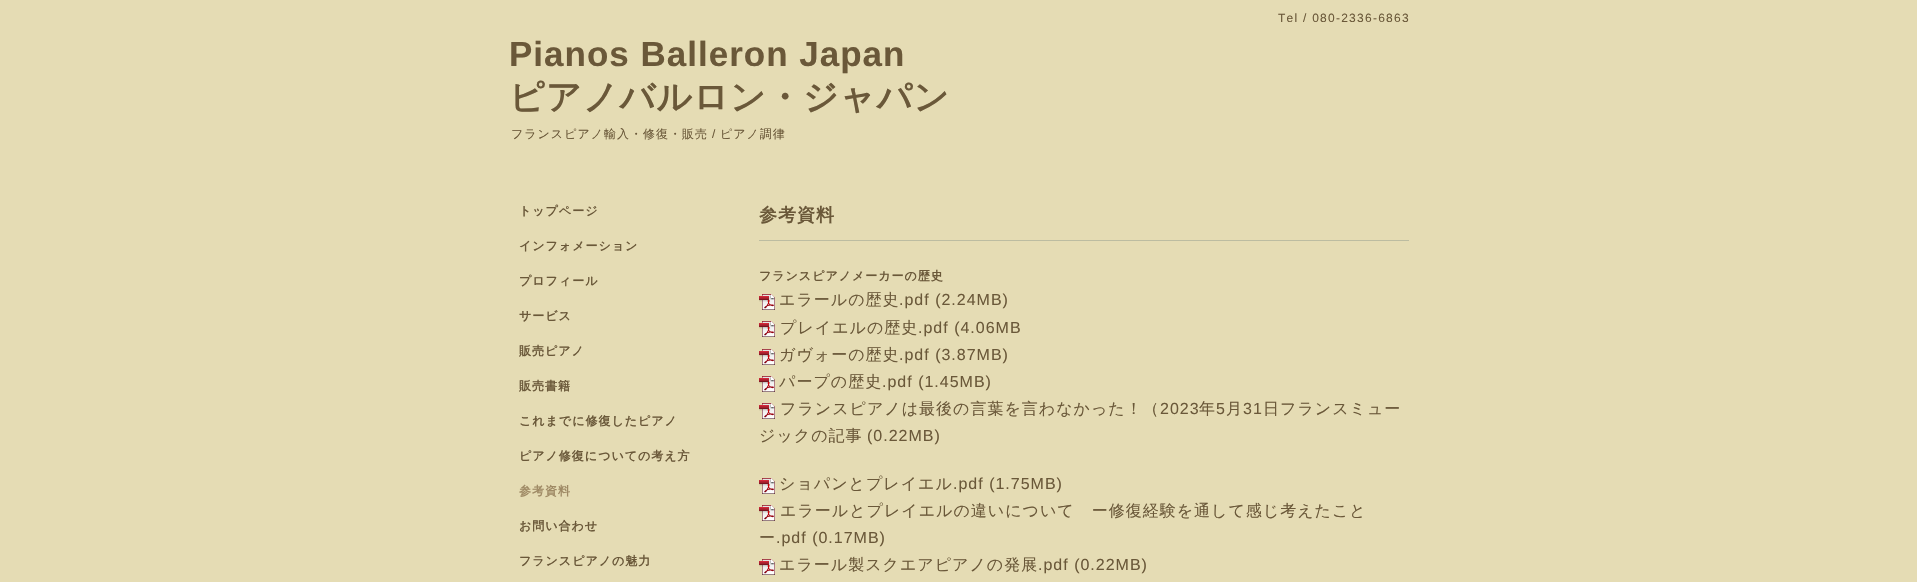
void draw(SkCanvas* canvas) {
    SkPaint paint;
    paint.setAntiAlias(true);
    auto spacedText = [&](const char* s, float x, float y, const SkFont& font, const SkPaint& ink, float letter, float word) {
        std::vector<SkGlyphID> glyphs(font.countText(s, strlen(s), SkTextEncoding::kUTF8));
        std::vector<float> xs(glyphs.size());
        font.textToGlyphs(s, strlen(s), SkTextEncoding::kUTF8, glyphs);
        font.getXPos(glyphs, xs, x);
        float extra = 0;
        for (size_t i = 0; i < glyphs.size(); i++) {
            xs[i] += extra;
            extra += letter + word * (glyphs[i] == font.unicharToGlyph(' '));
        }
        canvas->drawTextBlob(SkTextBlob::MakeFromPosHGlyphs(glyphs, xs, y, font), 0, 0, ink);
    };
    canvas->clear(0xFFE5DCB4);
    SkFont font1(fontMgr->matchFamilyStyle("Liberation Sans", SkFontStyle::Normal()), 12);
    font1.setSubpixel(true);
    paint.setColor(0xFF6A5839);
    spacedText("Tel / 080-2336-6863", 1278, 22, font1, paint, 1.25f, 0);
    SkFont font2(fontMgr->matchFamilyStyle("Liberation Sans", SkFontStyle::Bold()), 35);
    font2.setSubpixel(true);
    spacedText("Pianos Balleron Japan", 509, 66, font2, paint, 1, 0);
    SkFont font3(fontMgr->matchFamilyStyle("WenQuanYi Zen Hei", SkFontStyle::Bold()), 35);
    font3.setSubpixel(true);
    spacedText("ピアノバルロン・ジャパン", 509, 109, font3, paint, 1, 0);
    SkFont font4(fontMgr->matchFamilyStyle("WenQuanYi Zen Hei", SkFontStyle(500, SkFontStyle::kNormal_Width, SkFontStyle::kUpright_Slant)), 12);
    font4.setSubpixel(true);
    spacedText("フランスピアノ輸入・修復・販売", 511, 138, font4, paint, 1, 0);
    spacedText("/", 712, 138, font1, paint, 1, 0);
    spacedText("ピアノ調律", 720, 138, font4, paint, 1, 0);
    SkFont font5(fontMgr->matchFamilyStyle("WenQuanYi Zen Hei", SkFontStyle::Bold()), 12);
    font5.setSubpixel(true);
    spacedText("トップページ", 519, 215, font5, paint, 1, 0);
    spacedText("インフォメーション", 519, 250, font5, paint, 1, 0);
    spacedText("プロフィール", 519, 285, font5, paint, 1, 0);
    spacedText("サービス", 519, 320, font5, paint, 1, 0);
    spacedText("販売ピアノ", 519, 355, font5, paint, 1, 0);
    spacedText("販売書籍", 519, 390, font5, paint, 1, 0);
    spacedText("これまでに修復したピアノ", 519, 425, font5, paint, 1, 0);
    spacedText("ピアノ修復についての考え方", 519, 460, font5, paint, 1, 0);
    paint.setColor(0xFF9F8A65);
    spacedText("参考資料", 519, 495, font5, paint, 1, 0);
    paint.setColor(0xFF6A5839);
    spacedText("お問い合わせ", 519, 530, font5, paint, 1, 0);
    spacedText("フランスピアノの魅力", 519, 565, font5, paint, 1, 0);
    SkFont font6(fontMgr->matchFamilyStyle("WenQuanYi Zen Hei", SkFontStyle::Bold()), 18);
    font6.setSubpixel(true);
    spacedText("参考資料", 759, 221, font6, paint, 1, 0);
    paint.setColor(0xFFBCBCA1);
    canvas->drawRect(SkRect::MakeXYWH(759, 240, 650, 1), paint);
    paint.setColor(0xFF6A5839);
    spacedText("フランスピアノメーカーの歴史", 759, 280, font5, paint, 1, 0);
    canvas->drawImageRect(SkImages::DeferredFromEncodedData(SkData::MakeFromFileName("img1.png")), SkRect::MakeXYWH(759, 294, 16, 16), SkSamplingOptions());
    SkFont font7(fontMgr->matchFamilyStyle("WenQuanYi Zen Hei", SkFontStyle(500, SkFontStyle::kNormal_Width, SkFontStyle::kUpright_Slant)), 16);
    font7.setSubpixel(true);
    spacedText("エラールの歴史", 779, 305, font7, paint, 1, 0);
    SkFont font8(fontMgr->matchFamilyStyle("Liberation Sans", SkFontStyle::Normal()), 16);
    font8.setSubpixel(true);
    spacedText(".pdf (2.24MB)", 899, 305, font8, paint, 1, 0);
    canvas->drawImageRect(SkImages::DeferredFromEncodedData(SkData::MakeFromFileName("img1.png")), SkRect::MakeXYWH(759, 321, 16, 16), SkSamplingOptions());
    spacedText("プレイエルの歴史", 780, 333, font7, paint, 1, 0);
    spacedText(".pdf (4.06MB", 918, 333, font8, paint, 1, 0);
    canvas->drawImageRect(SkImages::DeferredFromEncodedData(SkData::MakeFromFileName("img1.png")), SkRect::MakeXYWH(759, 349, 16, 16), SkSamplingOptions());
    spacedText("ガヴォーの歴史", 779, 360, font7, paint, 1, 0);
    spacedText(".pdf (3.87MB)", 899, 360, font8, paint, 1, 0);
    canvas->drawImageRect(SkImages::DeferredFromEncodedData(SkData::MakeFromFileName("img1.png")), SkRect::MakeXYWH(759, 376, 16, 16), SkSamplingOptions());
    spacedText("パープの歴史", 779, 387, font7, paint, 1, 0);
    spacedText(".pdf (1.45MB)", 882, 387, font8, paint, 1, 0);
    canvas->drawImageRect(SkImages::DeferredFromEncodedData(SkData::MakeFromFileName("img1.png")), SkRect::MakeXYWH(759, 403, 16, 16), SkSamplingOptions());
    spacedText("フランスピアノは最後の言葉を言わなかった！（", 780, 414, font7, paint, 1, 0);
    spacedText("2023", 1160, 414, font8, paint, 1, 0);
    spacedText("年", 1199, 414, font7, paint, 1, 0);
    spacedText("5", 1216, 414, font8, paint, 1, 0);
    spacedText("月", 1226, 414, font7, paint, 1, 0);
    spacedText("31", 1243, 414, font8, paint, 1, 0);
    spacedText("日フランスミュー", 1263, 414, font7, paint, 1, 0);
    spacedText("ジックの記事", 759, 441, font7, paint, 1, 0);
    spacedText("(0.22MB)", 867, 441, font8, paint, 1, 0);
    canvas->drawImageRect(SkImages::DeferredFromEncodedData(SkData::MakeFromFileName("img1.png")), SkRect::MakeXYWH(759, 478, 16, 16), SkSamplingOptions());
    spacedText("ショパンとプレイエル", 779, 489, font7, paint, 1, 0);
    spacedText(".pdf (1.75MB)", 953, 489, font8, paint, 1, 0);
    canvas->drawImageRect(SkImages::DeferredFromEncodedData(SkData::MakeFromFileName("img1.png")), SkRect::MakeXYWH(759, 505, 16, 16), SkSamplingOptions());
    spacedText("エラールとプレイエルの違いについて　ー修復経験を通して感じ考えたこと", 780, 516, font7, paint, 1, 0);
    spacedText("ー", 759, 543, font7, paint, 1, 0);
    spacedText(".pdf (0.17MB)", 776, 543, font8, paint, 1, 0);
    canvas->drawImageRect(SkImages::DeferredFromEncodedData(SkData::MakeFromFileName("img1.png")), SkRect::MakeXYWH(759, 559, 16, 16), SkSamplingOptions());
    spacedText("エラール製スクエアピアノの発展", 779, 570, font7, paint, 1, 0);
    spacedText(".pdf (0.22MB)", 1038, 570, font8, paint, 1, 0);
}
